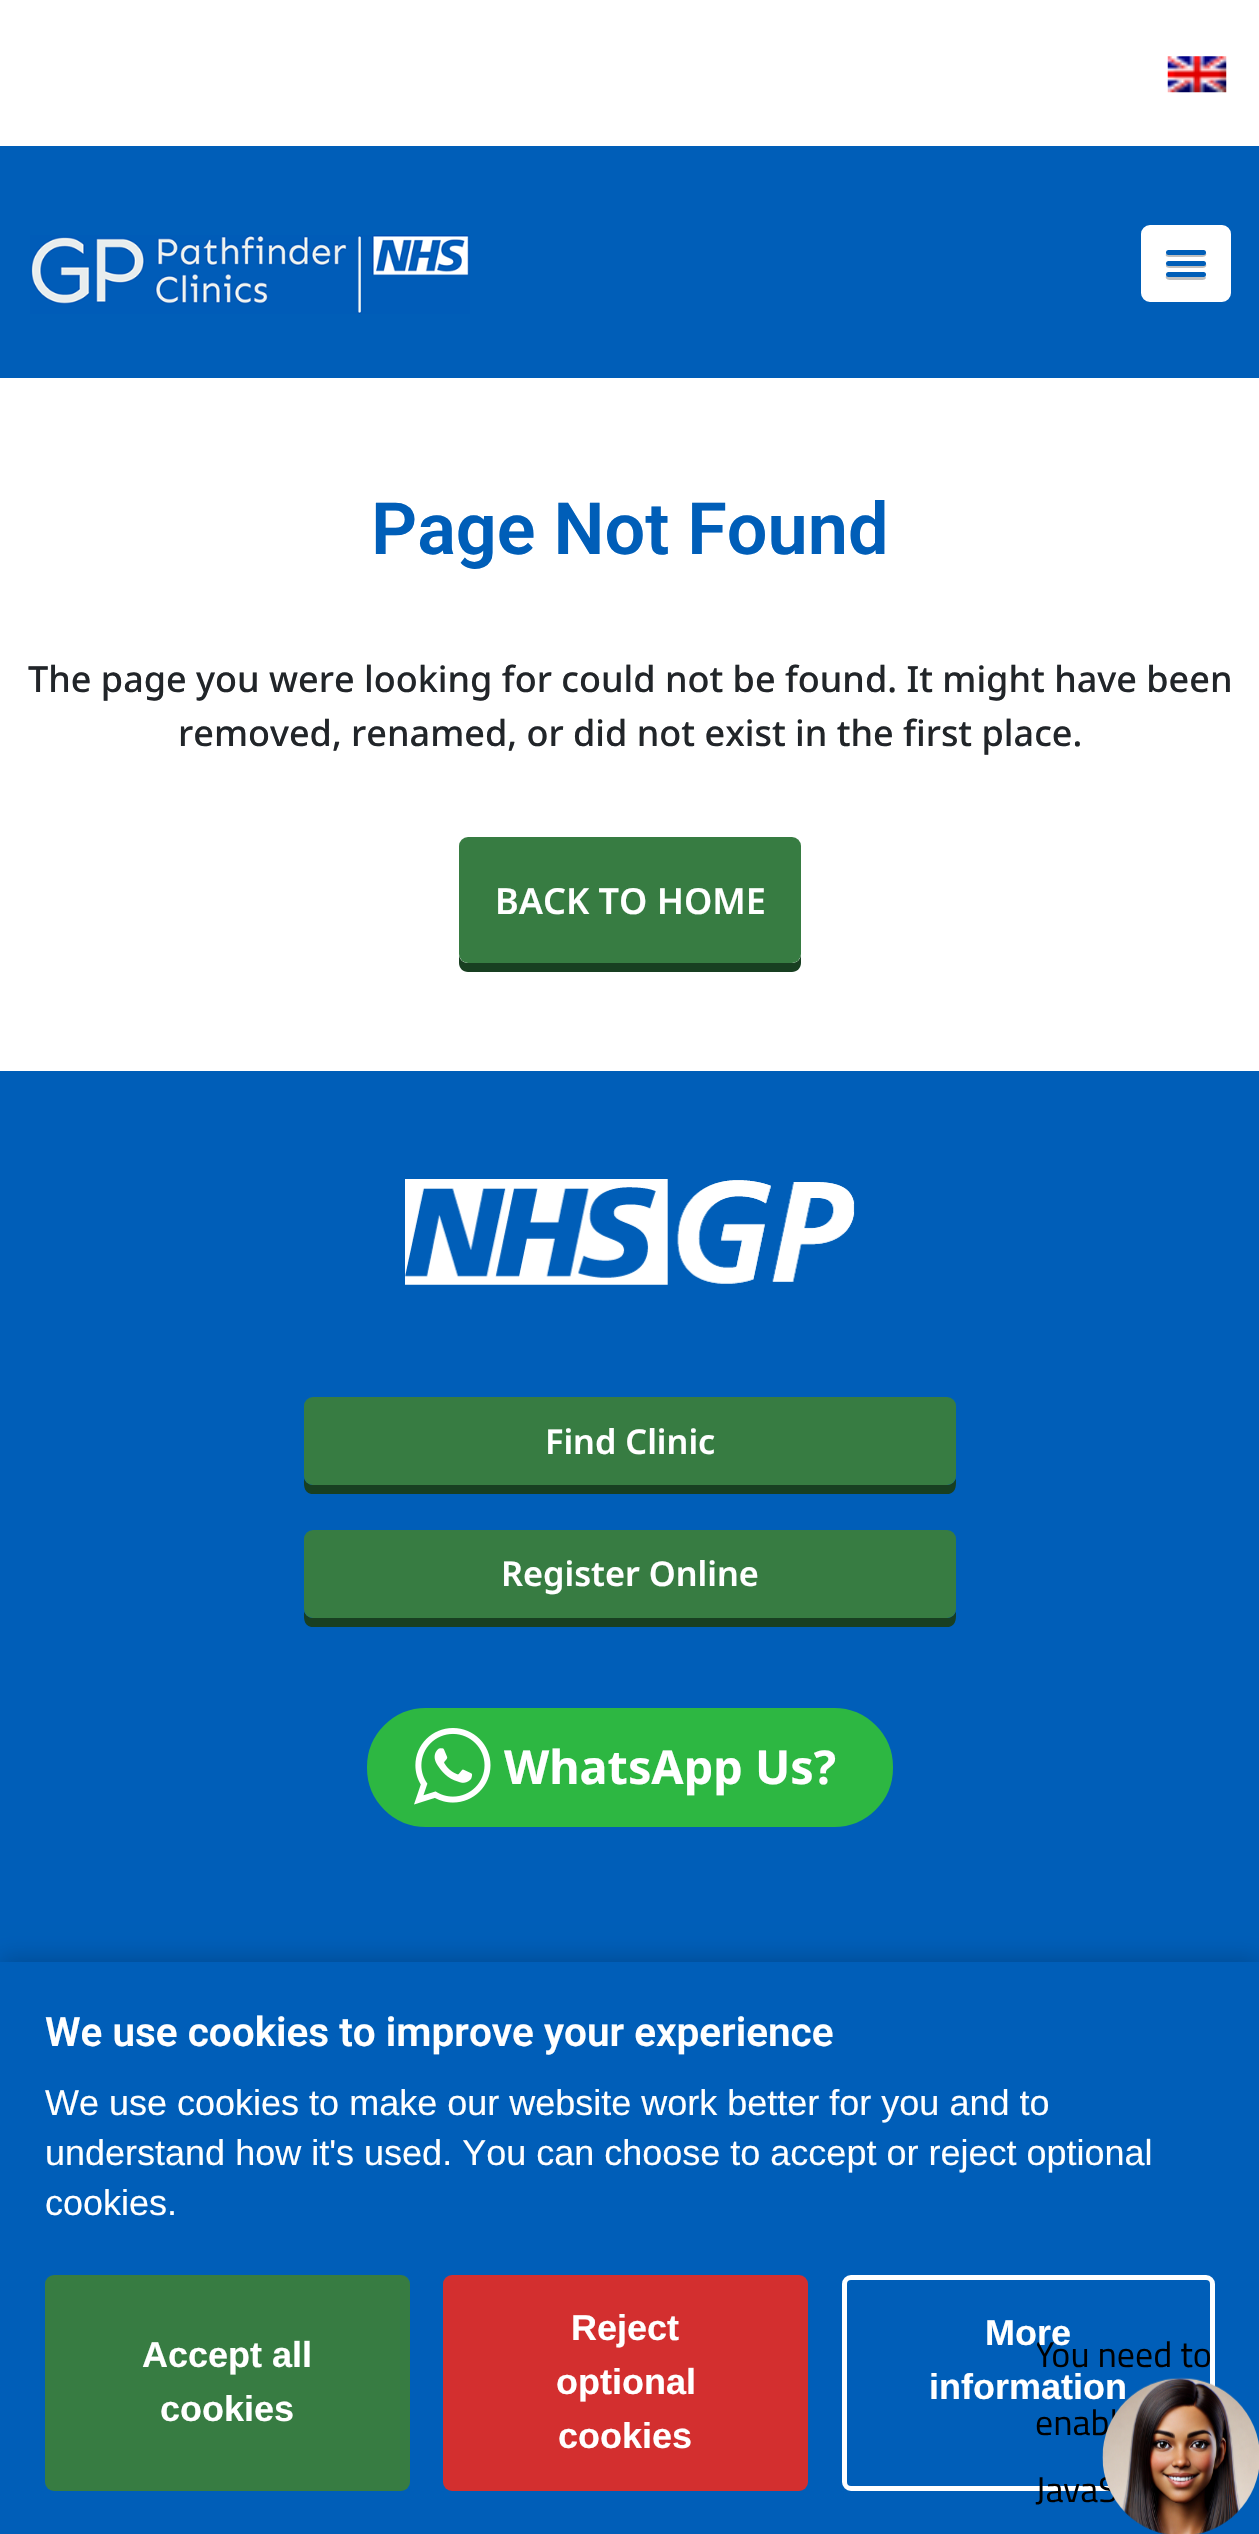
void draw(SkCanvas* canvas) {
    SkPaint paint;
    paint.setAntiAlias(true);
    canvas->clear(0xFFFFFFFF);
    canvas->drawImageRect(SkImages::DeferredFromEncodedData(SkData::MakeFromFileName("img1.png")), SkRect::MakeXYWH(1167, 56, 60, 37), SkSamplingOptions());
    paint.setColor(0xFF005EB8);
    canvas->drawRect(SkRect::MakeXYWH(0, 146, 1259, 232), paint);
    canvas->drawImageRect(SkImages::DeferredFromEncodedData(SkData::MakeFromFileName("img2.png")), SkRect::MakeXYWH(30, 235, 440, 79), SkSamplingOptions());
    paint.setColor(0xFFFFFFFF);
    canvas->drawRoundRect(SkRect::MakeXYWH(1140, 224, 92, 79), 10, 10, paint);
    paint.setStyle(SkPaint::kStroke_Style);
    paint.setStrokeWidth(2);
    paint.setColor(0xFF005EB8);
    canvas->drawRoundRect(SkRect::MakeXYWH(1140, 224, 92, 79), 10, 10, paint);
    paint.setStyle(SkPaint::kFill_Style);
    paint.setColor(0xFFBFBFBF);
    canvas->drawPath(SkPathBuilder().moveTo(1166, 254).cubicTo(1164, 258, 1173, 257, 1174, 257).lineTo(1198, 257).cubicTo(1198, 257, 1208, 258, 1206, 253).lineTo(1204, 254).cubicTo(1200, 255, 1167, 255, 1166, 254).close().detach(), paint);
    paint.setColor(0xFF005EB8);
    canvas->drawRoundRect(SkRect::MakeXYWH(1166, 250, 40, 5), 2.5f, 2.5f, paint);
    paint.setColor(0xFFBFBFBF);
    canvas->drawPath(SkPathBuilder().moveTo(1166, 265).cubicTo(1165, 269, 1173, 268, 1174, 268).lineTo(1198, 268).cubicTo(1199, 268, 1208, 269, 1206, 264).lineTo(1204, 265).cubicTo(1200, 266, 1167, 266, 1166, 265).close().detach(), paint);
    paint.setColor(0xFF005EB8);
    canvas->drawRoundRect(SkRect::MakeXYWH(1166, 261, 40, 5), 2.5f, 2.5f, paint);
    paint.setColor(0xFFBFBFBF);
    canvas->drawPath(SkPathBuilder().moveTo(1166, 276).cubicTo(1164, 281, 1174, 280, 1174, 280).lineTo(1198, 280).cubicTo(1198, 280, 1209, 281, 1205, 276).lineTo(1204, 277).cubicTo(1201, 277, 1168, 277, 1166, 276).close().detach(), paint);
    paint.setColor(0xFF005EB8);
    canvas->drawRoundRect(SkRect::MakeXYWH(1166, 272, 40, 5), 2.5f, 2.5f, paint);
    SkFont font1(fontMgr->matchFamilyStyle("Roboto", SkFontStyle(600, SkFontStyle::kNormal_Width, SkFontStyle::kUpright_Slant)), 72);
    font1.setSubpixel(true);
    canvas->drawString("Page Not Found", 371, 554, font1, paint);
    SkFont font2(fontMgr->matchFamilyStyle("Noto Sans", SkFontStyle(500, SkFontStyle::kNormal_Width, SkFontStyle::kUpright_Slant)), 36);
    font2.setSubpixel(true);
    paint.setColor(0xFF212529);
    canvas->drawString("The page you were looking for could not be found. It might have been", 28, 692, font2, paint);
    canvas->drawString("removed, renamed, or did not exist in the first place.", 178, 746, font2, paint);
    paint.setColor(0xFF183F21);
    canvas->drawPath(SkPathBuilder().moveTo(459, 954).lineTo(459, 963).cubicTo(459, 968, 463, 972, 468, 972).lineTo(792, 972).cubicTo(797, 972, 801, 968, 801, 963).lineTo(801, 954).cubicTo(801, 959, 797, 963, 792, 963).lineTo(468, 963).cubicTo(463, 963, 459, 959, 459, 954).close().detach(), paint);
    paint.setColor(0xFF377C42);
    canvas->drawRoundRect(SkRect::MakeXYWH(459, 837, 342, 126), 9, 9, paint);
    SkFont font3(fontMgr->matchFamilyStyle("Noto Sans", SkFontStyle(600, SkFontStyle::kNormal_Width, SkFontStyle::kUpright_Slant)), 36);
    font3.setSubpixel(true);
    paint.setColor(0xFFFFFFFF);
    canvas->drawString("BACK TO HOME", 495, 914, font3, paint);
    paint.setColor(0xFF005EB8);
    canvas->drawRect(SkRect::MakeXYWH(0, 1071, 1259, 891), paint);
    canvas->drawImageRect(SkImages::DeferredFromEncodedData(SkData::MakeFromFileName("img3.png")), SkRect::MakeXYWH(405, 1179, 450, 106), SkSamplingOptions());
    paint.setColor(0xFF183F21);
    canvas->drawPath(SkPathBuilder().moveTo(304, 1478).cubicTo(304, 1484, 303, 1492, 311, 1494).lineTo(949, 1494).cubicTo(957, 1492, 956, 1484, 956, 1478).cubicTo(955, 1482, 951, 1485, 947, 1485).lineTo(313, 1485).cubicTo(309, 1485, 305, 1482, 304, 1478).close().detach(), paint);
    paint.setColor(0xFF377C42);
    canvas->drawRoundRect(SkRect::MakeXYWH(304, 1397, 652, 88), 9, 9, paint);
    SkFont font4(fontMgr->matchFamilyStyle("Noto Sans", SkFontStyle(600, SkFontStyle::kNormal_Width, SkFontStyle::kUpright_Slant)), 34.25f);
    font4.setSubpixel(true);
    paint.setColor(0xFFFFFFFF);
    canvas->drawString("Find Clinic", 545, 1454, font4, paint);
    paint.setColor(0xFF183F21);
    canvas->drawPath(SkPathBuilder().moveTo(304, 1611).cubicTo(304, 1617, 303, 1625, 311, 1627).lineTo(949, 1627).cubicTo(957, 1625, 956, 1617, 956, 1611).cubicTo(955, 1615, 951, 1618, 947, 1618).lineTo(313, 1618).cubicTo(309, 1618, 305, 1615, 304, 1611).close().detach(), paint);
    paint.setColor(0xFF377C42);
    canvas->drawRoundRect(SkRect::MakeXYWH(304, 1530, 652, 88), 9, 9, paint);
    paint.setColor(0xFFFFFFFF);
    canvas->drawString("Register Online", 501, 1586, font4, paint);
    paint.setColor(0xFF2DB742);
    canvas->drawRoundRect(SkRect::MakeXYWH(368, 1709, 524, 117), 58, 58, paint);
    paint.setStyle(SkPaint::kStroke_Style);
    canvas->drawRoundRect(SkRect::MakeXYWH(368, 1709, 524, 117), 58, 58, paint);
    canvas->drawImageRect(SkImages::DeferredFromEncodedData(SkData::MakeFromFileName("img4.png")), SkRect::MakeXYWH(414, 1728, 77, 77), SkSamplingOptions());
    SkFont font5(fontMgr->matchFamilyStyle("Noto Sans", SkFontStyle::Bold()), 46.75f);
    font5.setSubpixel(true);
    paint.setStyle(SkPaint::kFill_Style);
    paint.setColor(0xFFFFFFFF);
    canvas->drawString("WhatsApp Us?", 504, 1784, font5, paint);
    paint.setColor(0x33000000);
    paint.setMaskFilter(SkMaskFilter::MakeBlur(kNormal_SkBlurStyle, 11));
    canvas->drawRect(SkRect::MakeXYWH(0, 1958, 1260, 573), paint);
    paint.setMaskFilter(nullptr);
    paint.setColor(0xFF005EB8);
    canvas->drawRect(SkRect::MakeXYWH(0, 1962, 1259, 572), paint);
    SkFont font6(fontMgr->matchFamilyStyle("Roboto", SkFontStyle(600, SkFontStyle::kNormal_Width, SkFontStyle::kUpright_Slant)), 40.5f);
    font6.setSubpixel(true);
    paint.setColor(0xFFFFFFFF);
    canvas->drawString("We use cookies to improve your experience", 45, 2046, font6, paint);
    SkFont font7(fontMgr->matchFamilyStyle("Liberation Sans", SkFontStyle::Normal()), 36);
    font7.setSubpixel(true);
    canvas->drawString("We use cookies to make our website work better for you and to", 45, 2115, font7, paint);
    canvas->drawString("understand how it's used. You can choose to accept or reject optional", 45, 2165, font7, paint);
    canvas->drawString("cookies.", 45, 2215, font7, paint);
    paint.setColor(0xFF377C42);
    canvas->drawRoundRect(SkRect::MakeXYWH(45, 2275, 365, 216), 9, 9, paint);
    SkFont font8(fontMgr->matchFamilyStyle("Liberation Sans", SkFontStyle::Bold()), 36);
    font8.setSubpixel(true);
    paint.setColor(0xFFFFFFFF);
    canvas->drawString("Accept all", 142, 2367, font8, paint);
    canvas->drawString("cookies", 160, 2421, font8, paint);
    paint.setColor(0xFFD32F2F);
    canvas->drawRoundRect(SkRect::MakeXYWH(443, 2275, 365, 216), 9, 9, paint);
    paint.setColor(0xFFFFFFFF);
    canvas->drawString("Reject", 571, 2340, font8, paint);
    canvas->drawString("optional", 556, 2394, font8, paint);
    canvas->drawString("cookies", 558, 2448, font8, paint);
    paint.setStyle(SkPaint::kStroke_Style);
    paint.setStrokeWidth(5);
    canvas->drawRoundRect(SkRect::MakeXYWH(844.5f, 2277.5f, 368, 211), 6.5f, 6.5f, paint);
    paint.setStyle(SkPaint::kFill_Style);
    canvas->drawString("More", 985, 2345, font8, paint);
    canvas->drawString("information", 929, 2399, font8, paint);
    canvas->drawImageRect(SkImages::DeferredFromEncodedData(SkData::MakeFromFileName("img5.png")), SkRect::MakeXYWH(1035, 2341, 224, 193), SkSamplingOptions());
}
